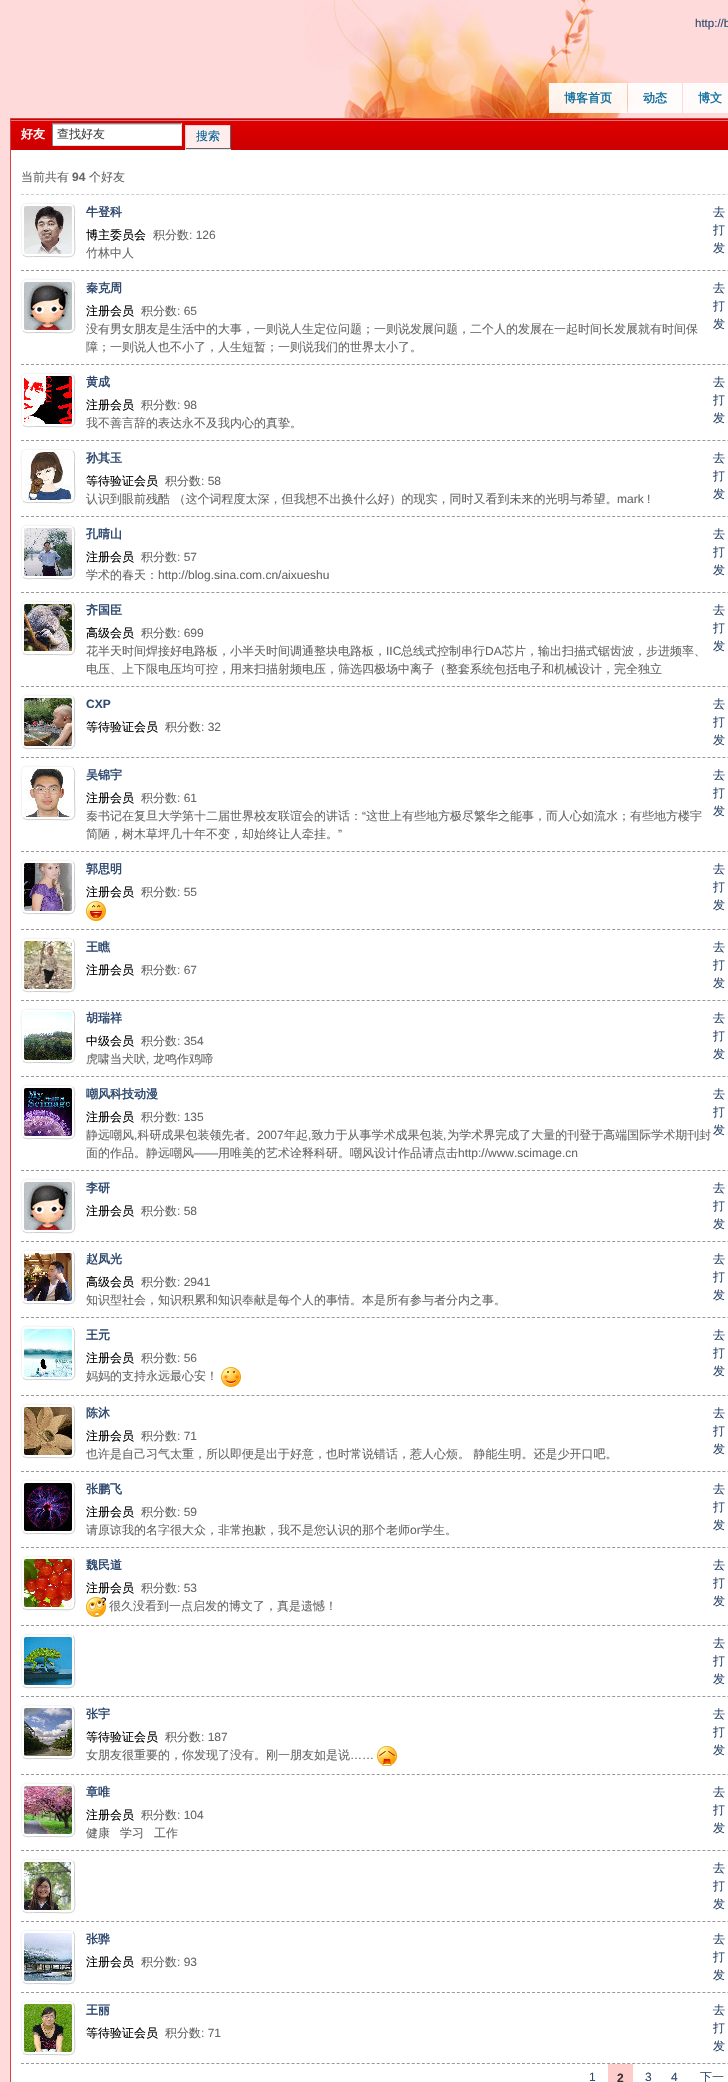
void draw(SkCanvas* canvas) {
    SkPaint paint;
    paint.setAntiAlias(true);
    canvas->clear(0xFFFEDADA);
    canvas->drawImageRect(SkImages::DeferredFromEncodedData(SkData::MakeFromFileName("img1.png")), SkRect::MakeXYWH(304, 0, 340, 118), SkSamplingOptions());
    SkFont font1(fontMgr->matchFamilyStyle("Liberation Sans", SkFontStyle::Normal()), 11.5f);
    font1.setSubpixel(true);
    paint.setColor(0xFF2F496F);
    canvas->drawString("http://b", 695, 27, font1, paint);
    paint.setColor(0xE6FFFFFF);
    canvas->drawRect(SkRect::MakeXYWH(549, 83, 78, 30), paint);
    SkFont font2(fontMgr->matchFamilyStyle("WenQuanYi Zen Hei", SkFontStyle::Bold()), 12);
    font2.setSubpixel(true);
    paint.setColor(0xFF1974A2);
    canvas->drawString("博客首页", 564, 102, font2, paint);
    paint.setColor(0xE6FFFFFF);
    canvas->drawRect(SkRect::MakeXYWH(628, 83, 54, 30), paint);
    paint.setColor(0xFF1974A2);
    canvas->drawString("动态", 643, 102, font2, paint);
    paint.setColor(0xFFFFFBFB);
    canvas->drawRect(SkRect::MakeXYWH(683, 83, 45, 30), paint);
    paint.setColor(0xFF1974A2);
    canvas->drawString("博文", 698, 102, font2, paint);
    paint.setColor(0xFFFFFFFF);
    canvas->drawRect(SkRect::MakeXYWH(11, 150, 717, 1932), paint);
    paint.setStyle(SkPaint::kStroke_Style);
    paint.setStrokeWidth(1);
    paint.setColor(0xFFD64141);
    canvas->drawRect(SkRect::MakeXYWH(10.5f, 118.5f, 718, 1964), paint);
    canvas->drawImageRect(SkImages::DeferredFromEncodedData(SkData::MakeFromFileName("img2.png")), SkRect::MakeXYWH(11, 119, 717, 31), SkSamplingOptions());
    paint.setStyle(SkPaint::kFill_Style);
    paint.setColor(0xFFFFFFFF);
    canvas->drawString("好友", 21, 138, font2, paint);
    canvas->drawRect(SkRect::MakeXYWH(53, 125, 128, 20), paint);
    paint.setColor(0xFFD4D4D4);
    canvas->drawRect(SkRect::MakeXYWH(52, 124, 130, 1), paint);
    paint.setColor(0xFF848484);
    canvas->drawRect(SkRect::MakeXYWH(52, 123, 130, 1), paint);
    paint.setColor(0xFFE0E0E0);
    canvas->drawRect(SkRect::MakeXYWH(181, 123, 1, 23), paint);
    canvas->drawRect(SkRect::MakeXYWH(52, 145, 130, 1), paint);
    paint.setColor(0xFF848484);
    canvas->drawRect(SkRect::MakeXYWH(52, 123, 1, 23), paint);
    SkFont font3(fontMgr->matchFamilyStyle("WenQuanYi Zen Hei", SkFontStyle(500, SkFontStyle::kNormal_Width, SkFontStyle::kUpright_Slant)), 12);
    font3.setSubpixel(true);
    paint.setColor(0xFF444444);
    canvas->drawString("查找好友", 57, 138, font3, paint);
    paint.setColor(0xFFE5E5E5);
    canvas->drawRect(SkRect::MakeXYWH(185, 149, 46, 1), paint);
    paint.setColor(0xFFFFECEC);
    canvas->drawRect(SkRect::MakeXYWH(186, 126, 44, 22), paint);
    paint.setColor(0xFFFFCCCC);
    canvas->drawRect(SkRect::MakeXYWH(185, 125, 46, 1), paint);
    paint.setColor(0xFF666666);
    canvas->drawRect(SkRect::MakeXYWH(230, 125, 1, 24), paint);
    canvas->drawRect(SkRect::MakeXYWH(185, 148, 46, 1), paint);
    paint.setColor(0xFFFFCCCC);
    canvas->drawRect(SkRect::MakeXYWH(185, 125, 1, 24), paint);
    paint.setColor(0xFF006699);
    canvas->drawString("搜索", 196, 140, font3, paint);
    paint.setStyle(SkPaint::kStroke_Style);
    paint.setColor(0xFFCDCDCD);
    paint.setPathEffect(SkDashPathEffect::Make({{3, 2.01f}}, 0));
    canvas->drawPath(SkPathBuilder().moveTo(21, 194.5f).lineTo(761, 194.5f).detach(), paint);
    paint.setPathEffect(nullptr);
    paint.setStyle(SkPaint::kFill_Style);
    paint.setColor(0xFF666666);
    canvas->drawString("当前共有", 21, 181, font3, paint);
    SkFont font4(fontMgr->matchFamilyStyle("Liberation Sans", SkFontStyle::Bold()), 12);
    font4.setSubpixel(true);
    canvas->drawString("94", 72, 181, font4, paint);
    canvas->drawString("个好友", 89, 181, font3, paint);
    paint.setStyle(SkPaint::kStroke_Style);
    paint.setColor(0xFF999999);
    paint.setPathEffect(SkDashPathEffect::Make({{3, 2.01f}}, 0));
    canvas->drawPath(SkPathBuilder().moveTo(21, 270.5f).lineTo(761, 270.5f).detach(), paint);
    paint.setPathEffect(nullptr);
    paint.setColor(0xFFCDCDCD);
    canvas->drawPath(SkPathBuilder().moveTo(73, 205).cubicTo(75.5f, 207.5f, 74.5f, 213, 74.5f, 215.5f).lineTo(74.5f, 230).cubicTo(74.5f, 262, 80, 256.5f, 48, 256.5f).lineTo(33.5f, 256.5f).cubicTo(31, 256.5f, 25.5f, 257.5f, 23, 255).detach(), paint);
    paint.setColor(0xFFF2F2F2);
    canvas->drawPath(SkPathBuilder().moveTo(23, 255).cubicTo(20.5f, 252.5f, 21.5f, 247, 21.5f, 244.5f).lineTo(21.5f, 230).cubicTo(21.5f, 198, 16, 203.5f, 48, 203.5f).lineTo(62.5f, 203.5f).cubicTo(65, 203.5f, 70.5f, 202.5f, 73, 205).detach(), paint);
    canvas->drawImageRect(SkImages::DeferredFromEncodedData(SkData::MakeFromFileName("img3.png")), SkRect::MakeXYWH(24, 206, 48, 48), SkSamplingOptions());
    paint.setStyle(SkPaint::kFill_Style);
    paint.setColor(0xFF2F496F);
    canvas->drawString("牛登科", 86, 216, font2, paint);
    canvas->drawString("去", 713, 216, font3, paint);
    canvas->drawString("打", 713, 234, font3, paint);
    canvas->drawString("发", 713, 252, font3, paint);
    paint.setColor(0xFF000000);
    canvas->drawString("博主委员会", 86, 239, font3, paint);
    paint.setColor(0xFF666666);
    canvas->drawString("积分数", 153, 239, font3, paint);
    SkFont font5(fontMgr->matchFamilyStyle("Liberation Sans", SkFontStyle::Normal()), 12);
    font5.setSubpixel(true);
    canvas->drawString(": 126", 189, 239, font5, paint);
    canvas->drawString("竹林中人", 86, 257, font3, paint);
    paint.setStyle(SkPaint::kStroke_Style);
    paint.setColor(0xFF999999);
    paint.setPathEffect(SkDashPathEffect::Make({{3, 2.01f}}, 0));
    canvas->drawPath(SkPathBuilder().moveTo(21, 364.5f).lineTo(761, 364.5f).detach(), paint);
    paint.setPathEffect(nullptr);
    paint.setColor(0xFFCDCDCD);
    canvas->drawPath(SkPathBuilder().moveTo(73, 281).cubicTo(75.5f, 283.5f, 74.5f, 289, 74.5f, 291.5f).lineTo(74.5f, 306).cubicTo(74.5f, 338, 80, 332.5f, 48, 332.5f).lineTo(33.5f, 332.5f).cubicTo(31, 332.5f, 25.5f, 333.5f, 23, 331).detach(), paint);
    paint.setColor(0xFFF2F2F2);
    canvas->drawPath(SkPathBuilder().moveTo(23, 331).cubicTo(20.5f, 328.5f, 21.5f, 323, 21.5f, 320.5f).lineTo(21.5f, 306).cubicTo(21.5f, 274, 16, 279.5f, 48, 279.5f).lineTo(62.5f, 279.5f).cubicTo(65, 279.5f, 70.5f, 278.5f, 73, 281).detach(), paint);
    canvas->drawImageRect(SkImages::DeferredFromEncodedData(SkData::MakeFromFileName("img4.png")), SkRect::MakeXYWH(24, 282, 48, 48), SkSamplingOptions());
    paint.setStyle(SkPaint::kFill_Style);
    paint.setColor(0xFF2F496F);
    canvas->drawString("秦克周", 86, 292, font2, paint);
    canvas->drawString("去", 713, 292, font3, paint);
    canvas->drawString("打", 713, 310, font3, paint);
    canvas->drawString("发", 713, 328, font3, paint);
    paint.setColor(0xFF000000);
    canvas->drawString("注册会员", 86, 315, font3, paint);
    paint.setColor(0xFF666666);
    canvas->drawString("积分数", 141, 315, font3, paint);
    canvas->drawString(": 65", 177, 315, font5, paint);
    canvas->drawString("没有男女朋友是生活中的大事，一则说人生定位问题；一则说发展问题，二个人的发展在一起时间长发展就有时间保", 86, 333, font3, paint);
    canvas->drawString("障；一则说人也不小了，人生短暂；一则说我们的世界太小了。", 86, 351, font3, paint);
    paint.setStyle(SkPaint::kStroke_Style);
    paint.setColor(0xFF999999);
    paint.setPathEffect(SkDashPathEffect::Make({{3, 2.01f}}, 0));
    canvas->drawPath(SkPathBuilder().moveTo(21, 440.5f).lineTo(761, 440.5f).detach(), paint);
    paint.setPathEffect(nullptr);
    paint.setColor(0xFFCDCDCD);
    canvas->drawPath(SkPathBuilder().moveTo(73, 375).cubicTo(75.5f, 377.5f, 74.5f, 383, 74.5f, 385.5f).lineTo(74.5f, 400).cubicTo(74.5f, 432, 80, 426.5f, 48, 426.5f).lineTo(33.5f, 426.5f).cubicTo(31, 426.5f, 25.5f, 427.5f, 23, 425).detach(), paint);
    paint.setColor(0xFFF2F2F2);
    canvas->drawPath(SkPathBuilder().moveTo(23, 425).cubicTo(20.5f, 422.5f, 21.5f, 417, 21.5f, 414.5f).lineTo(21.5f, 400).cubicTo(21.5f, 368, 16, 373.5f, 48, 373.5f).lineTo(62.5f, 373.5f).cubicTo(65, 373.5f, 70.5f, 372.5f, 73, 375).detach(), paint);
    canvas->drawImageRect(SkImages::DeferredFromEncodedData(SkData::MakeFromFileName("img5.png")), SkRect::MakeXYWH(24, 376, 48, 48), SkSamplingOptions());
    paint.setStyle(SkPaint::kFill_Style);
    paint.setColor(0xFF2F496F);
    canvas->drawString("黄成", 86, 386, font2, paint);
    canvas->drawString("去", 713, 386, font3, paint);
    canvas->drawString("打", 713, 404, font3, paint);
    canvas->drawString("发", 713, 422, font3, paint);
    paint.setColor(0xFF000000);
    canvas->drawString("注册会员", 86, 409, font3, paint);
    paint.setColor(0xFF666666);
    canvas->drawString("积分数", 141, 409, font3, paint);
    canvas->drawString(": 98", 177, 409, font5, paint);
    canvas->drawString("我不善言辞的表达永不及我内心的真挚。", 86, 427, font3, paint);
    paint.setStyle(SkPaint::kStroke_Style);
    paint.setColor(0xFF999999);
    paint.setPathEffect(SkDashPathEffect::Make({{3, 2.01f}}, 0));
    canvas->drawPath(SkPathBuilder().moveTo(21, 516.5f).lineTo(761, 516.5f).detach(), paint);
    paint.setPathEffect(nullptr);
    paint.setColor(0xFFCDCDCD);
    canvas->drawPath(SkPathBuilder().moveTo(73, 451).cubicTo(75.5f, 453.5f, 74.5f, 459, 74.5f, 461.5f).lineTo(74.5f, 476).cubicTo(74.5f, 508, 80, 502.5f, 48, 502.5f).lineTo(33.5f, 502.5f).cubicTo(31, 502.5f, 25.5f, 503.5f, 23, 501).detach(), paint);
    paint.setColor(0xFFF2F2F2);
    canvas->drawPath(SkPathBuilder().moveTo(23, 501).cubicTo(20.5f, 498.5f, 21.5f, 493, 21.5f, 490.5f).lineTo(21.5f, 476).cubicTo(21.5f, 444, 16, 449.5f, 48, 449.5f).lineTo(62.5f, 449.5f).cubicTo(65, 449.5f, 70.5f, 448.5f, 73, 451).detach(), paint);
    canvas->drawImageRect(SkImages::DeferredFromEncodedData(SkData::MakeFromFileName("img6.png")), SkRect::MakeXYWH(24, 452, 48, 48), SkSamplingOptions());
    paint.setStyle(SkPaint::kFill_Style);
    paint.setColor(0xFF2F496F);
    canvas->drawString("孙其玉", 86, 462, font2, paint);
    canvas->drawString("去", 713, 462, font3, paint);
    canvas->drawString("打", 713, 480, font3, paint);
    canvas->drawString("发", 713, 498, font3, paint);
    paint.setColor(0xFF000000);
    canvas->drawString("等待验证会员", 86, 485, font3, paint);
    paint.setColor(0xFF666666);
    canvas->drawString("积分数", 165, 485, font3, paint);
    canvas->drawString(": 58", 201, 485, font5, paint);
    canvas->drawString("认识到眼前残酷 （这个词程度太深，但我想不出换什么好）的现实，同时又看到未来的光明与希望。", 86, 503, font3, paint);
    canvas->drawString("mark !", 617, 503, font5, paint);
    paint.setStyle(SkPaint::kStroke_Style);
    paint.setColor(0xFF999999);
    paint.setPathEffect(SkDashPathEffect::Make({{3, 2.01f}}, 0));
    canvas->drawPath(SkPathBuilder().moveTo(21, 592.5f).lineTo(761, 592.5f).detach(), paint);
    paint.setPathEffect(nullptr);
    paint.setColor(0xFFCDCDCD);
    canvas->drawPath(SkPathBuilder().moveTo(73, 527).cubicTo(75.5f, 529.5f, 74.5f, 535, 74.5f, 537.5f).lineTo(74.5f, 552).cubicTo(74.5f, 584, 80, 578.5f, 48, 578.5f).lineTo(33.5f, 578.5f).cubicTo(31, 578.5f, 25.5f, 579.5f, 23, 577).detach(), paint);
    paint.setColor(0xFFF2F2F2);
    canvas->drawPath(SkPathBuilder().moveTo(23, 577).cubicTo(20.5f, 574.5f, 21.5f, 569, 21.5f, 566.5f).lineTo(21.5f, 552).cubicTo(21.5f, 520, 16, 525.5f, 48, 525.5f).lineTo(62.5f, 525.5f).cubicTo(65, 525.5f, 70.5f, 524.5f, 73, 527).detach(), paint);
    canvas->drawImageRect(SkImages::DeferredFromEncodedData(SkData::MakeFromFileName("img7.png")), SkRect::MakeXYWH(24, 528, 48, 48), SkSamplingOptions());
    paint.setStyle(SkPaint::kFill_Style);
    paint.setColor(0xFF2F496F);
    canvas->drawString("孔晴山", 86, 538, font2, paint);
    canvas->drawString("去", 713, 538, font3, paint);
    canvas->drawString("打", 713, 556, font3, paint);
    canvas->drawString("发", 713, 574, font3, paint);
    paint.setColor(0xFF000000);
    canvas->drawString("注册会员", 86, 561, font3, paint);
    paint.setColor(0xFF666666);
    canvas->drawString("积分数", 141, 561, font3, paint);
    canvas->drawString(": 57", 177, 561, font5, paint);
    canvas->drawString("学术的春天：", 86, 579, font3, paint);
    canvas->drawString("http://blog.sina.com.cn/aixueshu", 158, 579, font5, paint);
    paint.setStyle(SkPaint::kStroke_Style);
    paint.setColor(0xFF999999);
    paint.setPathEffect(SkDashPathEffect::Make({{3, 2.01f}}, 0));
    canvas->drawPath(SkPathBuilder().moveTo(21, 686.5f).lineTo(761, 686.5f).detach(), paint);
    paint.setPathEffect(nullptr);
    paint.setColor(0xFFCDCDCD);
    canvas->drawPath(SkPathBuilder().moveTo(73, 603).cubicTo(75.5f, 605.5f, 74.5f, 611, 74.5f, 613.5f).lineTo(74.5f, 628).cubicTo(74.5f, 660, 80, 654.5f, 48, 654.5f).lineTo(33.5f, 654.5f).cubicTo(31, 654.5f, 25.5f, 655.5f, 23, 653).detach(), paint);
    paint.setColor(0xFFF2F2F2);
    canvas->drawPath(SkPathBuilder().moveTo(23, 653).cubicTo(20.5f, 650.5f, 21.5f, 645, 21.5f, 642.5f).lineTo(21.5f, 628).cubicTo(21.5f, 596, 16, 601.5f, 48, 601.5f).lineTo(62.5f, 601.5f).cubicTo(65, 601.5f, 70.5f, 600.5f, 73, 603).detach(), paint);
    canvas->drawImageRect(SkImages::DeferredFromEncodedData(SkData::MakeFromFileName("img8.png")), SkRect::MakeXYWH(24, 604, 48, 48), SkSamplingOptions());
    paint.setStyle(SkPaint::kFill_Style);
    paint.setColor(0xFF2F496F);
    canvas->drawString("齐国臣", 86, 614, font2, paint);
    canvas->drawString("去", 713, 614, font3, paint);
    canvas->drawString("打", 713, 632, font3, paint);
    canvas->drawString("发", 713, 650, font3, paint);
    paint.setColor(0xFF000000);
    canvas->drawString("高级会员", 86, 637, font3, paint);
    paint.setColor(0xFF666666);
    canvas->drawString("积分数", 141, 637, font3, paint);
    canvas->drawString(": 699", 177, 637, font5, paint);
    canvas->drawString("花半天时间焊接好电路板，小半天时间调通整块电路板，", 86, 655, font3, paint);
    canvas->drawString("IIC", 386, 655, font5, paint);
    canvas->drawString("总线式控制串行", 401, 655, font3, paint);
    canvas->drawString("DA", 485, 655, font5, paint);
    canvas->drawString("芯片，输出扫描式锯齿波，步进频率、", 502, 655, font3, paint);
    canvas->drawString("电压、上下限电压均可控，用来扫描射频电压，筛选四极场中离子（整套系统包括电子和机械设计，完全独立", 86, 673, font3, paint);
    paint.setStyle(SkPaint::kStroke_Style);
    paint.setColor(0xFF999999);
    paint.setPathEffect(SkDashPathEffect::Make({{3, 2.01f}}, 0));
    canvas->drawPath(SkPathBuilder().moveTo(21, 757.5f).lineTo(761, 757.5f).detach(), paint);
    paint.setPathEffect(nullptr);
    paint.setColor(0xFFCDCDCD);
    canvas->drawPath(SkPathBuilder().moveTo(73, 697).cubicTo(75.5f, 699.5f, 74.5f, 705, 74.5f, 707.5f).lineTo(74.5f, 722).cubicTo(74.5f, 754, 80, 748.5f, 48, 748.5f).lineTo(33.5f, 748.5f).cubicTo(31, 748.5f, 25.5f, 749.5f, 23, 747).detach(), paint);
    paint.setColor(0xFFF2F2F2);
    canvas->drawPath(SkPathBuilder().moveTo(23, 747).cubicTo(20.5f, 744.5f, 21.5f, 739, 21.5f, 736.5f).lineTo(21.5f, 722).cubicTo(21.5f, 690, 16, 695.5f, 48, 695.5f).lineTo(62.5f, 695.5f).cubicTo(65, 695.5f, 70.5f, 694.5f, 73, 697).detach(), paint);
    canvas->drawImageRect(SkImages::DeferredFromEncodedData(SkData::MakeFromFileName("img9.png")), SkRect::MakeXYWH(24, 698, 48, 48), SkSamplingOptions());
    paint.setStyle(SkPaint::kFill_Style);
    paint.setColor(0xFF2F496F);
    canvas->drawString("CXP", 86, 708, font4, paint);
    canvas->drawString("去", 713, 708, font3, paint);
    canvas->drawString("打", 713, 726, font3, paint);
    canvas->drawString("发", 713, 744, font3, paint);
    paint.setColor(0xFF000000);
    canvas->drawString("等待验证会员", 86, 731, font3, paint);
    paint.setColor(0xFF666666);
    canvas->drawString("积分数", 165, 731, font3, paint);
    canvas->drawString(": 32", 201, 731, font5, paint);
    paint.setStyle(SkPaint::kStroke_Style);
    paint.setColor(0xFF999999);
    paint.setPathEffect(SkDashPathEffect::Make({{3, 2.01f}}, 0));
    canvas->drawPath(SkPathBuilder().moveTo(21, 851.5f).lineTo(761, 851.5f).detach(), paint);
    paint.setPathEffect(nullptr);
    paint.setColor(0xFFCDCDCD);
    canvas->drawPath(SkPathBuilder().moveTo(73, 768).cubicTo(75.5f, 770.5f, 74.5f, 776, 74.5f, 778.5f).lineTo(74.5f, 793).cubicTo(74.5f, 825, 80, 819.5f, 48, 819.5f).lineTo(33.5f, 819.5f).cubicTo(31, 819.5f, 25.5f, 820.5f, 23, 818).detach(), paint);
    paint.setColor(0xFFF2F2F2);
    canvas->drawPath(SkPathBuilder().moveTo(23, 818).cubicTo(20.5f, 815.5f, 21.5f, 810, 21.5f, 807.5f).lineTo(21.5f, 793).cubicTo(21.5f, 761, 16, 766.5f, 48, 766.5f).lineTo(62.5f, 766.5f).cubicTo(65, 766.5f, 70.5f, 765.5f, 73, 768).detach(), paint);
    canvas->drawImageRect(SkImages::DeferredFromEncodedData(SkData::MakeFromFileName("img10.png")), SkRect::MakeXYWH(24, 769, 47, 48), SkSamplingOptions());
    paint.setStyle(SkPaint::kFill_Style);
    paint.setColor(0xFF2F496F);
    canvas->drawString("吴锦宇", 86, 779, font2, paint);
    canvas->drawString("去", 713, 779, font3, paint);
    canvas->drawString("打", 713, 797, font3, paint);
    canvas->drawString("发", 713, 815, font3, paint);
    paint.setColor(0xFF000000);
    canvas->drawString("注册会员", 86, 802, font3, paint);
    paint.setColor(0xFF666666);
    canvas->drawString("积分数", 141, 802, font3, paint);
    canvas->drawString(": 61", 177, 802, font5, paint);
    canvas->drawString("秦书记在复旦大学第十二届世界校友联谊会的讲话：", 86, 820, font3, paint);
    canvas->drawString("“", 362, 820, font5, paint);
    canvas->drawString("这世上有些地方极尽繁华之能事，而人心如流水；有些地方楼宇", 366, 820, font3, paint);
    canvas->drawString("简陋，树木草坪几十年不变，却始终让人牵挂。", 86, 838, font3, paint);
    canvas->drawString("”", 338, 838, font5, paint);
    paint.setStyle(SkPaint::kStroke_Style);
    paint.setColor(0xFF999999);
    paint.setPathEffect(SkDashPathEffect::Make({{3, 2.01f}}, 0));
    canvas->drawPath(SkPathBuilder().moveTo(21, 929.5f).lineTo(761, 929.5f).detach(), paint);
    paint.setPathEffect(nullptr);
    paint.setColor(0xFFCDCDCD);
    canvas->drawPath(SkPathBuilder().moveTo(73, 862).cubicTo(75.5f, 864.5f, 74.5f, 870, 74.5f, 872.5f).lineTo(74.5f, 887).cubicTo(74.5f, 919, 80, 913.5f, 48, 913.5f).lineTo(33.5f, 913.5f).cubicTo(31, 913.5f, 25.5f, 914.5f, 23, 912).detach(), paint);
    paint.setColor(0xFFF2F2F2);
    canvas->drawPath(SkPathBuilder().moveTo(23, 912).cubicTo(20.5f, 909.5f, 21.5f, 904, 21.5f, 901.5f).lineTo(21.5f, 887).cubicTo(21.5f, 855, 16, 860.5f, 48, 860.5f).lineTo(62.5f, 860.5f).cubicTo(65, 860.5f, 70.5f, 859.5f, 73, 862).detach(), paint);
    canvas->drawImageRect(SkImages::DeferredFromEncodedData(SkData::MakeFromFileName("img11.png")), SkRect::MakeXYWH(24, 863, 48, 48), SkSamplingOptions());
    paint.setStyle(SkPaint::kFill_Style);
    paint.setColor(0xFF2F496F);
    canvas->drawString("郭思明", 86, 873, font2, paint);
    canvas->drawString("去", 713, 873, font3, paint);
    canvas->drawString("打", 713, 891, font3, paint);
    canvas->drawString("发", 713, 909, font3, paint);
    paint.setColor(0xFF000000);
    canvas->drawString("注册会员", 86, 896, font3, paint);
    paint.setColor(0xFF666666);
    canvas->drawString("积分数", 141, 896, font3, paint);
    canvas->drawString(": 55", 177, 896, font5, paint);
    canvas->drawImageRect(SkImages::DeferredFromEncodedData(SkData::MakeFromFileName("img12.png")), SkRect::MakeXYWH(86, 901, 20, 20), SkSamplingOptions());
    paint.setStyle(SkPaint::kStroke_Style);
    paint.setColor(0xFF999999);
    paint.setPathEffect(SkDashPathEffect::Make({{3, 2.01f}}, 0));
    canvas->drawPath(SkPathBuilder().moveTo(21, 1000.5f).lineTo(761, 1000.5f).detach(), paint);
    paint.setPathEffect(nullptr);
    paint.setColor(0xFFCDCDCD);
    canvas->drawPath(SkPathBuilder().moveTo(73, 940).cubicTo(75.5f, 942.5f, 74.5f, 948, 74.5f, 950.5f).lineTo(74.5f, 965).cubicTo(74.5f, 997, 80, 991.5f, 48, 991.5f).lineTo(33.5f, 991.5f).cubicTo(31, 991.5f, 25.5f, 992.5f, 23, 990).detach(), paint);
    paint.setColor(0xFFF2F2F2);
    canvas->drawPath(SkPathBuilder().moveTo(23, 990).cubicTo(20.5f, 987.5f, 21.5f, 982, 21.5f, 979.5f).lineTo(21.5f, 965).cubicTo(21.5f, 933, 16, 938.5f, 48, 938.5f).lineTo(62.5f, 938.5f).cubicTo(65, 938.5f, 70.5f, 937.5f, 73, 940).detach(), paint);
    canvas->drawImageRect(SkImages::DeferredFromEncodedData(SkData::MakeFromFileName("img13.png")), SkRect::MakeXYWH(24, 941, 48, 48), SkSamplingOptions());
    paint.setStyle(SkPaint::kFill_Style);
    paint.setColor(0xFF2F496F);
    canvas->drawString("王瞧", 86, 951, font2, paint);
    canvas->drawString("去", 713, 951, font3, paint);
    canvas->drawString("打", 713, 969, font3, paint);
    canvas->drawString("发", 713, 987, font3, paint);
    paint.setColor(0xFF000000);
    canvas->drawString("注册会员", 86, 974, font3, paint);
    paint.setColor(0xFF666666);
    canvas->drawString("积分数", 141, 974, font3, paint);
    canvas->drawString(": 67", 177, 974, font5, paint);
    paint.setStyle(SkPaint::kStroke_Style);
    paint.setColor(0xFF999999);
    paint.setPathEffect(SkDashPathEffect::Make({{3, 2.01f}}, 0));
    canvas->drawPath(SkPathBuilder().moveTo(21, 1076.5f).lineTo(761, 1076.5f).detach(), paint);
    paint.setPathEffect(nullptr);
    paint.setColor(0xFFCDCDCD);
    canvas->drawPath(SkPathBuilder().moveTo(73, 1011).cubicTo(75.5f, 1013.5f, 74.5f, 1019, 74.5f, 1021.5f).lineTo(74.5f, 1036).cubicTo(74.5f, 1068, 80, 1062.5f, 48, 1062.5f).lineTo(33.5f, 1062.5f).cubicTo(31, 1062.5f, 25.5f, 1063.5f, 23, 1061).detach(), paint);
    paint.setColor(0xFFF2F2F2);
    canvas->drawPath(SkPathBuilder().moveTo(23, 1061).cubicTo(20.5f, 1058.5f, 21.5f, 1053, 21.5f, 1050.5f).lineTo(21.5f, 1036).cubicTo(21.5f, 1004, 16, 1009.5f, 48, 1009.5f).lineTo(62.5f, 1009.5f).cubicTo(65, 1009.5f, 70.5f, 1008.5f, 73, 1011).detach(), paint);
    canvas->drawImageRect(SkImages::DeferredFromEncodedData(SkData::MakeFromFileName("img14.png")), SkRect::MakeXYWH(24, 1012, 48, 48), SkSamplingOptions());
    paint.setStyle(SkPaint::kFill_Style);
    paint.setColor(0xFF2F496F);
    canvas->drawString("胡瑞祥", 86, 1022, font2, paint);
    canvas->drawString("去", 713, 1022, font3, paint);
    canvas->drawString("打", 713, 1040, font3, paint);
    canvas->drawString("发", 713, 1058, font3, paint);
    paint.setColor(0xFF000000);
    canvas->drawString("中级会员", 86, 1045, font3, paint);
    paint.setColor(0xFF666666);
    canvas->drawString("积分数", 141, 1045, font3, paint);
    canvas->drawString(": 354", 177, 1045, font5, paint);
    canvas->drawString("虎啸当犬吠", 86, 1063, font3, paint);
    canvas->drawString(",", 146, 1063, font5, paint);
    canvas->drawString("龙鸣作鸡啼", 153, 1063, font3, paint);
    paint.setStyle(SkPaint::kStroke_Style);
    paint.setColor(0xFF999999);
    paint.setPathEffect(SkDashPathEffect::Make({{3, 2.01f}}, 0));
    canvas->drawPath(SkPathBuilder().moveTo(21, 1170.5f).lineTo(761, 1170.5f).detach(), paint);
    paint.setPathEffect(nullptr);
    paint.setColor(0xFFCDCDCD);
    canvas->drawPath(SkPathBuilder().moveTo(73, 1087).cubicTo(75.5f, 1089.5f, 74.5f, 1095, 74.5f, 1097.5f).lineTo(74.5f, 1112).cubicTo(74.5f, 1144, 80, 1138.5f, 48, 1138.5f).lineTo(33.5f, 1138.5f).cubicTo(31, 1138.5f, 25.5f, 1139.5f, 23, 1137).detach(), paint);
    paint.setColor(0xFFF2F2F2);
    canvas->drawPath(SkPathBuilder().moveTo(23, 1137).cubicTo(20.5f, 1134.5f, 21.5f, 1129, 21.5f, 1126.5f).lineTo(21.5f, 1112).cubicTo(21.5f, 1080, 16, 1085.5f, 48, 1085.5f).lineTo(62.5f, 1085.5f).cubicTo(65, 1085.5f, 70.5f, 1084.5f, 73, 1087).detach(), paint);
    canvas->drawImageRect(SkImages::DeferredFromEncodedData(SkData::MakeFromFileName("img15.png")), SkRect::MakeXYWH(24, 1088, 48, 48), SkSamplingOptions());
    paint.setStyle(SkPaint::kFill_Style);
    paint.setColor(0xFF2F496F);
    canvas->drawString("嘲风科技动漫", 86, 1098, font2, paint);
    canvas->drawString("去", 713, 1098, font3, paint);
    canvas->drawString("打", 713, 1116, font3, paint);
    canvas->drawString("发", 713, 1134, font3, paint);
    paint.setColor(0xFF000000);
    canvas->drawString("注册会员", 86, 1121, font3, paint);
    paint.setColor(0xFF666666);
    canvas->drawString("积分数", 141, 1121, font3, paint);
    canvas->drawString(": 135", 177, 1121, font5, paint);
    canvas->drawString("静远嘲风 科研成果包装领先者。", 86, 1139, font3, paint);
    canvas->drawString("2007", 257, 1139, font5, paint);
    canvas->drawString("年起 致力于从事学术成果包装 为学术界完成了大量的刊登于高端国际学术期刊封", 284, 1139, font3, paint);
    canvas->drawString(",", 134, 1139, font5, paint);
    canvas->drawString(",", 308, 1139, font5, paint);
    canvas->drawString(",", 443, 1139, font5, paint);
    canvas->drawString("面的作品。静远嘲风", 86, 1157, font3, paint);
    canvas->drawString("——", 194, 1157, font5, paint);
    canvas->drawString("用唯美的艺术诠释科研。嘲风设计作品请点击", 218, 1157, font3, paint);
    canvas->drawString("http://www.scimage.cn", 458, 1157, font5, paint);
    paint.setStyle(SkPaint::kStroke_Style);
    paint.setColor(0xFF999999);
    paint.setPathEffect(SkDashPathEffect::Make({{3, 2.01f}}, 0));
    canvas->drawPath(SkPathBuilder().moveTo(21, 1241.5f).lineTo(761, 1241.5f).detach(), paint);
    paint.setPathEffect(nullptr);
    paint.setColor(0xFFCDCDCD);
    canvas->drawPath(SkPathBuilder().moveTo(73, 1181).cubicTo(75.5f, 1183.5f, 74.5f, 1189, 74.5f, 1191.5f).lineTo(74.5f, 1206).cubicTo(74.5f, 1238, 80, 1232.5f, 48, 1232.5f).lineTo(33.5f, 1232.5f).cubicTo(31, 1232.5f, 25.5f, 1233.5f, 23, 1231).detach(), paint);
    paint.setColor(0xFFF2F2F2);
    canvas->drawPath(SkPathBuilder().moveTo(23, 1231).cubicTo(20.5f, 1228.5f, 21.5f, 1223, 21.5f, 1220.5f).lineTo(21.5f, 1206).cubicTo(21.5f, 1174, 16, 1179.5f, 48, 1179.5f).lineTo(62.5f, 1179.5f).cubicTo(65, 1179.5f, 70.5f, 1178.5f, 73, 1181).detach(), paint);
    canvas->drawImageRect(SkImages::DeferredFromEncodedData(SkData::MakeFromFileName("img4.png")), SkRect::MakeXYWH(24, 1182, 48, 48), SkSamplingOptions());
    paint.setStyle(SkPaint::kFill_Style);
    paint.setColor(0xFF2F496F);
    canvas->drawString("李研", 86, 1192, font2, paint);
    canvas->drawString("去", 713, 1192, font3, paint);
    canvas->drawString("打", 713, 1210, font3, paint);
    canvas->drawString("发", 713, 1228, font3, paint);
    paint.setColor(0xFF000000);
    canvas->drawString("注册会员", 86, 1215, font3, paint);
    paint.setColor(0xFF666666);
    canvas->drawString("积分数", 141, 1215, font3, paint);
    canvas->drawString(": 58", 177, 1215, font5, paint);
    paint.setStyle(SkPaint::kStroke_Style);
    paint.setColor(0xFF999999);
    paint.setPathEffect(SkDashPathEffect::Make({{3, 2.01f}}, 0));
    canvas->drawPath(SkPathBuilder().moveTo(21, 1317.5f).lineTo(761, 1317.5f).detach(), paint);
    paint.setPathEffect(nullptr);
    paint.setColor(0xFFCDCDCD);
    canvas->drawPath(SkPathBuilder().moveTo(73, 1252).cubicTo(75.5f, 1254.5f, 74.5f, 1260, 74.5f, 1262.5f).lineTo(74.5f, 1277).cubicTo(74.5f, 1309, 80, 1303.5f, 48, 1303.5f).lineTo(33.5f, 1303.5f).cubicTo(31, 1303.5f, 25.5f, 1304.5f, 23, 1302).detach(), paint);
    paint.setColor(0xFFF2F2F2);
    canvas->drawPath(SkPathBuilder().moveTo(23, 1302).cubicTo(20.5f, 1299.5f, 21.5f, 1294, 21.5f, 1291.5f).lineTo(21.5f, 1277).cubicTo(21.5f, 1245, 16, 1250.5f, 48, 1250.5f).lineTo(62.5f, 1250.5f).cubicTo(65, 1250.5f, 70.5f, 1249.5f, 73, 1252).detach(), paint);
    canvas->drawImageRect(SkImages::DeferredFromEncodedData(SkData::MakeFromFileName("img16.png")), SkRect::MakeXYWH(24, 1253, 48, 48), SkSamplingOptions());
    paint.setStyle(SkPaint::kFill_Style);
    paint.setColor(0xFF2F496F);
    canvas->drawString("赵凤光", 86, 1263, font2, paint);
    canvas->drawString("去", 713, 1263, font3, paint);
    canvas->drawString("打", 713, 1281, font3, paint);
    canvas->drawString("发", 713, 1299, font3, paint);
    paint.setColor(0xFF000000);
    canvas->drawString("高级会员", 86, 1286, font3, paint);
    paint.setColor(0xFF666666);
    canvas->drawString("积分数", 141, 1286, font3, paint);
    canvas->drawString(": 2941", 177, 1286, font5, paint);
    canvas->drawString("知识型社会，知识积累和知识奉献是每个人的事情。本是所有参与者分内之事。", 86, 1304, font3, paint);
    paint.setStyle(SkPaint::kStroke_Style);
    paint.setColor(0xFF999999);
    paint.setPathEffect(SkDashPathEffect::Make({{3, 2.01f}}, 0));
    canvas->drawPath(SkPathBuilder().moveTo(21, 1395.5f).lineTo(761, 1395.5f).detach(), paint);
    paint.setPathEffect(nullptr);
    paint.setColor(0xFFCDCDCD);
    canvas->drawPath(SkPathBuilder().moveTo(73, 1328).cubicTo(75.5f, 1330.5f, 74.5f, 1336, 74.5f, 1338.5f).lineTo(74.5f, 1353).cubicTo(74.5f, 1385, 80, 1379.5f, 48, 1379.5f).lineTo(33.5f, 1379.5f).cubicTo(31, 1379.5f, 25.5f, 1380.5f, 23, 1378).detach(), paint);
    paint.setColor(0xFFF2F2F2);
    canvas->drawPath(SkPathBuilder().moveTo(23, 1378).cubicTo(20.5f, 1375.5f, 21.5f, 1370, 21.5f, 1367.5f).lineTo(21.5f, 1353).cubicTo(21.5f, 1321, 16, 1326.5f, 48, 1326.5f).lineTo(62.5f, 1326.5f).cubicTo(65, 1326.5f, 70.5f, 1325.5f, 73, 1328).detach(), paint);
    canvas->drawImageRect(SkImages::DeferredFromEncodedData(SkData::MakeFromFileName("img17.png")), SkRect::MakeXYWH(24, 1329, 48, 48), SkSamplingOptions());
    paint.setStyle(SkPaint::kFill_Style);
    paint.setColor(0xFF2F496F);
    canvas->drawString("王元", 86, 1339, font2, paint);
    canvas->drawString("去", 713, 1339, font3, paint);
    canvas->drawString("打", 713, 1357, font3, paint);
    canvas->drawString("发", 713, 1375, font3, paint);
    paint.setColor(0xFF000000);
    canvas->drawString("注册会员", 86, 1362, font3, paint);
    paint.setColor(0xFF666666);
    canvas->drawString("积分数", 141, 1362, font3, paint);
    canvas->drawString(": 56", 177, 1362, font5, paint);
    canvas->drawString("妈妈的支持永远最心安！", 86, 1380, font3, paint);
    canvas->drawImageRect(SkImages::DeferredFromEncodedData(SkData::MakeFromFileName("img18.png")), SkRect::MakeXYWH(221, 1367, 20, 20), SkSamplingOptions());
    paint.setStyle(SkPaint::kStroke_Style);
    paint.setColor(0xFF999999);
    paint.setPathEffect(SkDashPathEffect::Make({{3, 2.01f}}, 0));
    canvas->drawPath(SkPathBuilder().moveTo(21, 1471.5f).lineTo(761, 1471.5f).detach(), paint);
    paint.setPathEffect(nullptr);
    paint.setColor(0xFFCDCDCD);
    canvas->drawPath(SkPathBuilder().moveTo(73, 1406).cubicTo(75.5f, 1408.5f, 74.5f, 1414, 74.5f, 1416.5f).lineTo(74.5f, 1431).cubicTo(74.5f, 1463, 80, 1457.5f, 48, 1457.5f).lineTo(33.5f, 1457.5f).cubicTo(31, 1457.5f, 25.5f, 1458.5f, 23, 1456).detach(), paint);
    paint.setColor(0xFFF2F2F2);
    canvas->drawPath(SkPathBuilder().moveTo(23, 1456).cubicTo(20.5f, 1453.5f, 21.5f, 1448, 21.5f, 1445.5f).lineTo(21.5f, 1431).cubicTo(21.5f, 1399, 16, 1404.5f, 48, 1404.5f).lineTo(62.5f, 1404.5f).cubicTo(65, 1404.5f, 70.5f, 1403.5f, 73, 1406).detach(), paint);
    canvas->drawImageRect(SkImages::DeferredFromEncodedData(SkData::MakeFromFileName("img19.png")), SkRect::MakeXYWH(24, 1407, 48, 48), SkSamplingOptions());
    paint.setStyle(SkPaint::kFill_Style);
    paint.setColor(0xFF2F496F);
    canvas->drawString("陈沐", 86, 1417, font2, paint);
    canvas->drawString("去", 713, 1417, font3, paint);
    canvas->drawString("打", 713, 1435, font3, paint);
    canvas->drawString("发", 713, 1453, font3, paint);
    paint.setColor(0xFF000000);
    canvas->drawString("注册会员", 86, 1440, font3, paint);
    paint.setColor(0xFF666666);
    canvas->drawString("积分数", 141, 1440, font3, paint);
    canvas->drawString(": 71", 177, 1440, font5, paint);
    canvas->drawString("也许是自己习气太重，所以即便是出于好意，也时常说错话，惹人心烦。 静能生明。还是少开口吧。", 86, 1458, font3, paint);
    paint.setStyle(SkPaint::kStroke_Style);
    paint.setColor(0xFF999999);
    paint.setPathEffect(SkDashPathEffect::Make({{3, 2.01f}}, 0));
    canvas->drawPath(SkPathBuilder().moveTo(21, 1547.5f).lineTo(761, 1547.5f).detach(), paint);
    paint.setPathEffect(nullptr);
    paint.setColor(0xFFCDCDCD);
    canvas->drawPath(SkPathBuilder().moveTo(73, 1482).cubicTo(75.5f, 1484.5f, 74.5f, 1490, 74.5f, 1492.5f).lineTo(74.5f, 1507).cubicTo(74.5f, 1539, 80, 1533.5f, 48, 1533.5f).lineTo(33.5f, 1533.5f).cubicTo(31, 1533.5f, 25.5f, 1534.5f, 23, 1532).detach(), paint);
    paint.setColor(0xFFF2F2F2);
    canvas->drawPath(SkPathBuilder().moveTo(23, 1532).cubicTo(20.5f, 1529.5f, 21.5f, 1524, 21.5f, 1521.5f).lineTo(21.5f, 1507).cubicTo(21.5f, 1475, 16, 1480.5f, 48, 1480.5f).lineTo(62.5f, 1480.5f).cubicTo(65, 1480.5f, 70.5f, 1479.5f, 73, 1482).detach(), paint);
    canvas->drawImageRect(SkImages::DeferredFromEncodedData(SkData::MakeFromFileName("img20.png")), SkRect::MakeXYWH(24, 1483, 48, 48), SkSamplingOptions());
    paint.setStyle(SkPaint::kFill_Style);
    paint.setColor(0xFF2F496F);
    canvas->drawString("张鹏飞", 86, 1493, font2, paint);
    canvas->drawString("去", 713, 1493, font3, paint);
    canvas->drawString("打", 713, 1511, font3, paint);
    canvas->drawString("发", 713, 1529, font3, paint);
    paint.setColor(0xFF000000);
    canvas->drawString("注册会员", 86, 1516, font3, paint);
    paint.setColor(0xFF666666);
    canvas->drawString("积分数", 141, 1516, font3, paint);
    canvas->drawString(": 59", 177, 1516, font5, paint);
    canvas->drawString("请原谅我的名字很大众，非常抱歉，我不是您认识的那个老师", 86, 1534, font3, paint);
    canvas->drawString("or", 410, 1534, font5, paint);
    canvas->drawString("学生。", 421, 1534, font3, paint);
    paint.setStyle(SkPaint::kStroke_Style);
    paint.setColor(0xFF999999);
    paint.setPathEffect(SkDashPathEffect::Make({{3, 2.01f}}, 0));
    canvas->drawPath(SkPathBuilder().moveTo(21, 1625.5f).lineTo(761, 1625.5f).detach(), paint);
    paint.setPathEffect(nullptr);
    paint.setColor(0xFFCDCDCD);
    canvas->drawPath(SkPathBuilder().moveTo(73, 1558).cubicTo(75.5f, 1560.5f, 74.5f, 1566, 74.5f, 1568.5f).lineTo(74.5f, 1583).cubicTo(74.5f, 1615, 80, 1609.5f, 48, 1609.5f).lineTo(33.5f, 1609.5f).cubicTo(31, 1609.5f, 25.5f, 1610.5f, 23, 1608).detach(), paint);
    paint.setColor(0xFFF2F2F2);
    canvas->drawPath(SkPathBuilder().moveTo(23, 1608).cubicTo(20.5f, 1605.5f, 21.5f, 1600, 21.5f, 1597.5f).lineTo(21.5f, 1583).cubicTo(21.5f, 1551, 16, 1556.5f, 48, 1556.5f).lineTo(62.5f, 1556.5f).cubicTo(65, 1556.5f, 70.5f, 1555.5f, 73, 1558).detach(), paint);
    canvas->drawImageRect(SkImages::DeferredFromEncodedData(SkData::MakeFromFileName("img21.png")), SkRect::MakeXYWH(24, 1559, 48, 48), SkSamplingOptions());
    paint.setStyle(SkPaint::kFill_Style);
    paint.setColor(0xFF2F496F);
    canvas->drawString("魏民道", 86, 1569, font2, paint);
    canvas->drawString("去", 713, 1569, font3, paint);
    canvas->drawString("打", 713, 1587, font3, paint);
    canvas->drawString("发", 713, 1605, font3, paint);
    paint.setColor(0xFF000000);
    canvas->drawString("注册会员", 86, 1592, font3, paint);
    paint.setColor(0xFF666666);
    canvas->drawString("积分数", 141, 1592, font3, paint);
    canvas->drawString(": 53", 177, 1592, font5, paint);
    canvas->drawImageRect(SkImages::DeferredFromEncodedData(SkData::MakeFromFileName("img22.png")), SkRect::MakeXYWH(86, 1597, 20, 20), SkSamplingOptions());
    canvas->drawString("很久没看到一点启发的博文了，真是遗憾！", 109, 1610, font3, paint);
    paint.setStyle(SkPaint::kStroke_Style);
    paint.setColor(0xFF999999);
    paint.setPathEffect(SkDashPathEffect::Make({{3, 2.01f}}, 0));
    canvas->drawPath(SkPathBuilder().moveTo(21, 1696.5f).lineTo(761, 1696.5f).detach(), paint);
    paint.setPathEffect(nullptr);
    paint.setColor(0xFFCDCDCD);
    canvas->drawPath(SkPathBuilder().moveTo(73, 1636).cubicTo(75.5f, 1638.5f, 74.5f, 1644, 74.5f, 1646.5f).lineTo(74.5f, 1661).cubicTo(74.5f, 1693, 80, 1687.5f, 48, 1687.5f).lineTo(33.5f, 1687.5f).cubicTo(31, 1687.5f, 25.5f, 1688.5f, 23, 1686).detach(), paint);
    paint.setColor(0xFFF2F2F2);
    canvas->drawPath(SkPathBuilder().moveTo(23, 1686).cubicTo(20.5f, 1683.5f, 21.5f, 1678, 21.5f, 1675.5f).lineTo(21.5f, 1661).cubicTo(21.5f, 1629, 16, 1634.5f, 48, 1634.5f).lineTo(62.5f, 1634.5f).cubicTo(65, 1634.5f, 70.5f, 1633.5f, 73, 1636).detach(), paint);
    canvas->drawImageRect(SkImages::DeferredFromEncodedData(SkData::MakeFromFileName("img23.png")), SkRect::MakeXYWH(24, 1637, 48, 48), SkSamplingOptions());
    paint.setStyle(SkPaint::kFill_Style);
    paint.setColor(0xFF2F496F);
    canvas->drawString("去", 713, 1647, font3, paint);
    canvas->drawString("打", 713, 1665, font3, paint);
    canvas->drawString("发", 713, 1683, font3, paint);
    paint.setStyle(SkPaint::kStroke_Style);
    paint.setColor(0xFF999999);
    paint.setPathEffect(SkDashPathEffect::Make({{3, 2.01f}}, 0));
    canvas->drawPath(SkPathBuilder().moveTo(21, 1774.5f).lineTo(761, 1774.5f).detach(), paint);
    paint.setPathEffect(nullptr);
    paint.setColor(0xFFCDCDCD);
    canvas->drawPath(SkPathBuilder().moveTo(73, 1707).cubicTo(75.5f, 1709.5f, 74.5f, 1715, 74.5f, 1717.5f).lineTo(74.5f, 1732).cubicTo(74.5f, 1764, 80, 1758.5f, 48, 1758.5f).lineTo(33.5f, 1758.5f).cubicTo(31, 1758.5f, 25.5f, 1759.5f, 23, 1757).detach(), paint);
    paint.setColor(0xFFF2F2F2);
    canvas->drawPath(SkPathBuilder().moveTo(23, 1757).cubicTo(20.5f, 1754.5f, 21.5f, 1749, 21.5f, 1746.5f).lineTo(21.5f, 1732).cubicTo(21.5f, 1700, 16, 1705.5f, 48, 1705.5f).lineTo(62.5f, 1705.5f).cubicTo(65, 1705.5f, 70.5f, 1704.5f, 73, 1707).detach(), paint);
    canvas->drawImageRect(SkImages::DeferredFromEncodedData(SkData::MakeFromFileName("img24.png")), SkRect::MakeXYWH(24, 1708, 48, 48), SkSamplingOptions());
    paint.setStyle(SkPaint::kFill_Style);
    paint.setColor(0xFF2F496F);
    canvas->drawString("张宇", 86, 1718, font2, paint);
    canvas->drawString("去", 713, 1718, font3, paint);
    canvas->drawString("打", 713, 1736, font3, paint);
    canvas->drawString("发", 713, 1754, font3, paint);
    paint.setColor(0xFF000000);
    canvas->drawString("等待验证会员", 86, 1741, font3, paint);
    paint.setColor(0xFF666666);
    canvas->drawString("积分数", 165, 1741, font3, paint);
    canvas->drawString(": 187", 201, 1741, font5, paint);
    canvas->drawString("女朋友很重要的，你发现了没有。刚一朋友如是说", 86, 1759, font3, paint);
    canvas->drawString("……", 350, 1759, font5, paint);
    canvas->drawImageRect(SkImages::DeferredFromEncodedData(SkData::MakeFromFileName("img25.png")), SkRect::MakeXYWH(377, 1746, 20, 20), SkSamplingOptions());
    paint.setStyle(SkPaint::kStroke_Style);
    paint.setColor(0xFF999999);
    paint.setPathEffect(SkDashPathEffect::Make({{3, 2.01f}}, 0));
    canvas->drawPath(SkPathBuilder().moveTo(21, 1850.5f).lineTo(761, 1850.5f).detach(), paint);
    paint.setPathEffect(nullptr);
    paint.setColor(0xFFCDCDCD);
    canvas->drawPath(SkPathBuilder().moveTo(73, 1785).cubicTo(75.5f, 1787.5f, 74.5f, 1793, 74.5f, 1795.5f).lineTo(74.5f, 1810).cubicTo(74.5f, 1842, 80, 1836.5f, 48, 1836.5f).lineTo(33.5f, 1836.5f).cubicTo(31, 1836.5f, 25.5f, 1837.5f, 23, 1835).detach(), paint);
    paint.setColor(0xFFF2F2F2);
    canvas->drawPath(SkPathBuilder().moveTo(23, 1835).cubicTo(20.5f, 1832.5f, 21.5f, 1827, 21.5f, 1824.5f).lineTo(21.5f, 1810).cubicTo(21.5f, 1778, 16, 1783.5f, 48, 1783.5f).lineTo(62.5f, 1783.5f).cubicTo(65, 1783.5f, 70.5f, 1782.5f, 73, 1785).detach(), paint);
    canvas->drawImageRect(SkImages::DeferredFromEncodedData(SkData::MakeFromFileName("img26.png")), SkRect::MakeXYWH(24, 1786, 48, 48), SkSamplingOptions());
    paint.setStyle(SkPaint::kFill_Style);
    paint.setColor(0xFF2F496F);
    canvas->drawString("章唯", 86, 1796, font2, paint);
    canvas->drawString("去", 713, 1796, font3, paint);
    canvas->drawString("打", 713, 1814, font3, paint);
    canvas->drawString("发", 713, 1832, font3, paint);
    paint.setColor(0xFF000000);
    canvas->drawString("注册会员", 86, 1819, font3, paint);
    paint.setColor(0xFF666666);
    canvas->drawString("积分数", 141, 1819, font3, paint);
    canvas->drawString(": 104", 177, 1819, font5, paint);
    canvas->drawString("健康", 86, 1837, font3, paint);
    canvas->drawString("学习", 120, 1837, font3, paint);
    canvas->drawString("工作", 154, 1837, font3, paint);
    paint.setStyle(SkPaint::kStroke_Style);
    paint.setColor(0xFF999999);
    paint.setPathEffect(SkDashPathEffect::Make({{3, 2.01f}}, 0));
    canvas->drawPath(SkPathBuilder().moveTo(21, 1921.5f).lineTo(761, 1921.5f).detach(), paint);
    paint.setPathEffect(nullptr);
    paint.setColor(0xFFCDCDCD);
    canvas->drawPath(SkPathBuilder().moveTo(73, 1861).cubicTo(75.5f, 1863.5f, 74.5f, 1869, 74.5f, 1871.5f).lineTo(74.5f, 1886).cubicTo(74.5f, 1918, 80, 1912.5f, 48, 1912.5f).lineTo(33.5f, 1912.5f).cubicTo(31, 1912.5f, 25.5f, 1913.5f, 23, 1911).detach(), paint);
    paint.setColor(0xFFF2F2F2);
    canvas->drawPath(SkPathBuilder().moveTo(23, 1911).cubicTo(20.5f, 1908.5f, 21.5f, 1903, 21.5f, 1900.5f).lineTo(21.5f, 1886).cubicTo(21.5f, 1854, 16, 1859.5f, 48, 1859.5f).lineTo(62.5f, 1859.5f).cubicTo(65, 1859.5f, 70.5f, 1858.5f, 73, 1861).detach(), paint);
    canvas->drawImageRect(SkImages::DeferredFromEncodedData(SkData::MakeFromFileName("img27.png")), SkRect::MakeXYWH(24, 1862, 48, 48), SkSamplingOptions());
    paint.setStyle(SkPaint::kFill_Style);
    paint.setColor(0xFF2F496F);
    canvas->drawString("去", 713, 1872, font3, paint);
    canvas->drawString("打", 713, 1890, font3, paint);
    canvas->drawString("发", 713, 1908, font3, paint);
    paint.setStyle(SkPaint::kStroke_Style);
    paint.setColor(0xFF999999);
    paint.setPathEffect(SkDashPathEffect::Make({{3, 2.01f}}, 0));
    canvas->drawPath(SkPathBuilder().moveTo(21, 1992.5f).lineTo(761, 1992.5f).detach(), paint);
    paint.setPathEffect(nullptr);
    paint.setColor(0xFFCDCDCD);
    canvas->drawPath(SkPathBuilder().moveTo(73, 1932).cubicTo(75.5f, 1934.5f, 74.5f, 1940, 74.5f, 1942.5f).lineTo(74.5f, 1957).cubicTo(74.5f, 1989, 80, 1983.5f, 48, 1983.5f).lineTo(33.5f, 1983.5f).cubicTo(31, 1983.5f, 25.5f, 1984.5f, 23, 1982).detach(), paint);
    paint.setColor(0xFFF2F2F2);
    canvas->drawPath(SkPathBuilder().moveTo(23, 1982).cubicTo(20.5f, 1979.5f, 21.5f, 1974, 21.5f, 1971.5f).lineTo(21.5f, 1957).cubicTo(21.5f, 1925, 16, 1930.5f, 48, 1930.5f).lineTo(62.5f, 1930.5f).cubicTo(65, 1930.5f, 70.5f, 1929.5f, 73, 1932).detach(), paint);
    canvas->drawImageRect(SkImages::DeferredFromEncodedData(SkData::MakeFromFileName("img28.png")), SkRect::MakeXYWH(24, 1933, 48, 48), SkSamplingOptions());
    paint.setStyle(SkPaint::kFill_Style);
    paint.setColor(0xFF2F496F);
    canvas->drawString("张骅", 86, 1943, font2, paint);
    canvas->drawString("去", 713, 1943, font3, paint);
    canvas->drawString("打", 713, 1961, font3, paint);
    canvas->drawString("发", 713, 1979, font3, paint);
    paint.setColor(0xFF000000);
    canvas->drawString("注册会员", 86, 1966, font3, paint);
    paint.setColor(0xFF666666);
    canvas->drawString("积分数", 141, 1966, font3, paint);
    canvas->drawString(": 93", 177, 1966, font5, paint);
    paint.setStyle(SkPaint::kStroke_Style);
    paint.setColor(0xFF999999);
    paint.setPathEffect(SkDashPathEffect::Make({{3, 2.01f}}, 0));
    canvas->drawPath(SkPathBuilder().moveTo(21, 2063.5f).lineTo(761, 2063.5f).detach(), paint);
    paint.setPathEffect(nullptr);
    paint.setColor(0xFFCDCDCD);
    canvas->drawPath(SkPathBuilder().moveTo(73, 2003).cubicTo(75.5f, 2005.5f, 74.5f, 2011, 74.5f, 2013.5f).lineTo(74.5f, 2028).cubicTo(74.5f, 2060, 80, 2054.5f, 48, 2054.5f).lineTo(33.5f, 2054.5f).cubicTo(31, 2054.5f, 25.5f, 2055.5f, 23, 2053).detach(), paint);
    paint.setColor(0xFFF2F2F2);
    canvas->drawPath(SkPathBuilder().moveTo(23, 2053).cubicTo(20.5f, 2050.5f, 21.5f, 2045, 21.5f, 2042.5f).lineTo(21.5f, 2028).cubicTo(21.5f, 1996, 16, 2001.5f, 48, 2001.5f).lineTo(62.5f, 2001.5f).cubicTo(65, 2001.5f, 70.5f, 2000.5f, 73, 2003).detach(), paint);
    canvas->drawImageRect(SkImages::DeferredFromEncodedData(SkData::MakeFromFileName("img29.png")), SkRect::MakeXYWH(24, 2004, 48, 48), SkSamplingOptions());
    paint.setStyle(SkPaint::kFill_Style);
    paint.setColor(0xFF2F496F);
    canvas->drawString("王丽", 86, 2014, font2, paint);
    canvas->drawString("去", 713, 2014, font3, paint);
    canvas->drawString("打", 713, 2032, font3, paint);
    canvas->drawString("发", 713, 2050, font3, paint);
    paint.setColor(0xFF000000);
    canvas->drawString("等待验证会员", 86, 2037, font3, paint);
    paint.setColor(0xFF666666);
    canvas->drawString("积分数", 165, 2037, font3, paint);
    canvas->drawString(": 71", 201, 2037, font5, paint);
    paint.setColor(0xFF2F496F);
    canvas->drawString("1", 589, 2081, font5, paint);
    paint.setColor(0xFFFFCCCC);
    canvas->drawRect(SkRect::MakeXYWH(608, 2064, 25, 18), paint);
    paint.setColor(0xFF333333);
    canvas->drawString("2", 617, 2082, font4, paint);
    paint.setColor(0xFF2F496F);
    canvas->drawString("3", 645, 2081, font5, paint);
    canvas->drawString("4", 671, 2081, font5, paint);
    canvas->drawString("下一", 700, 2081, font3, paint);
}
